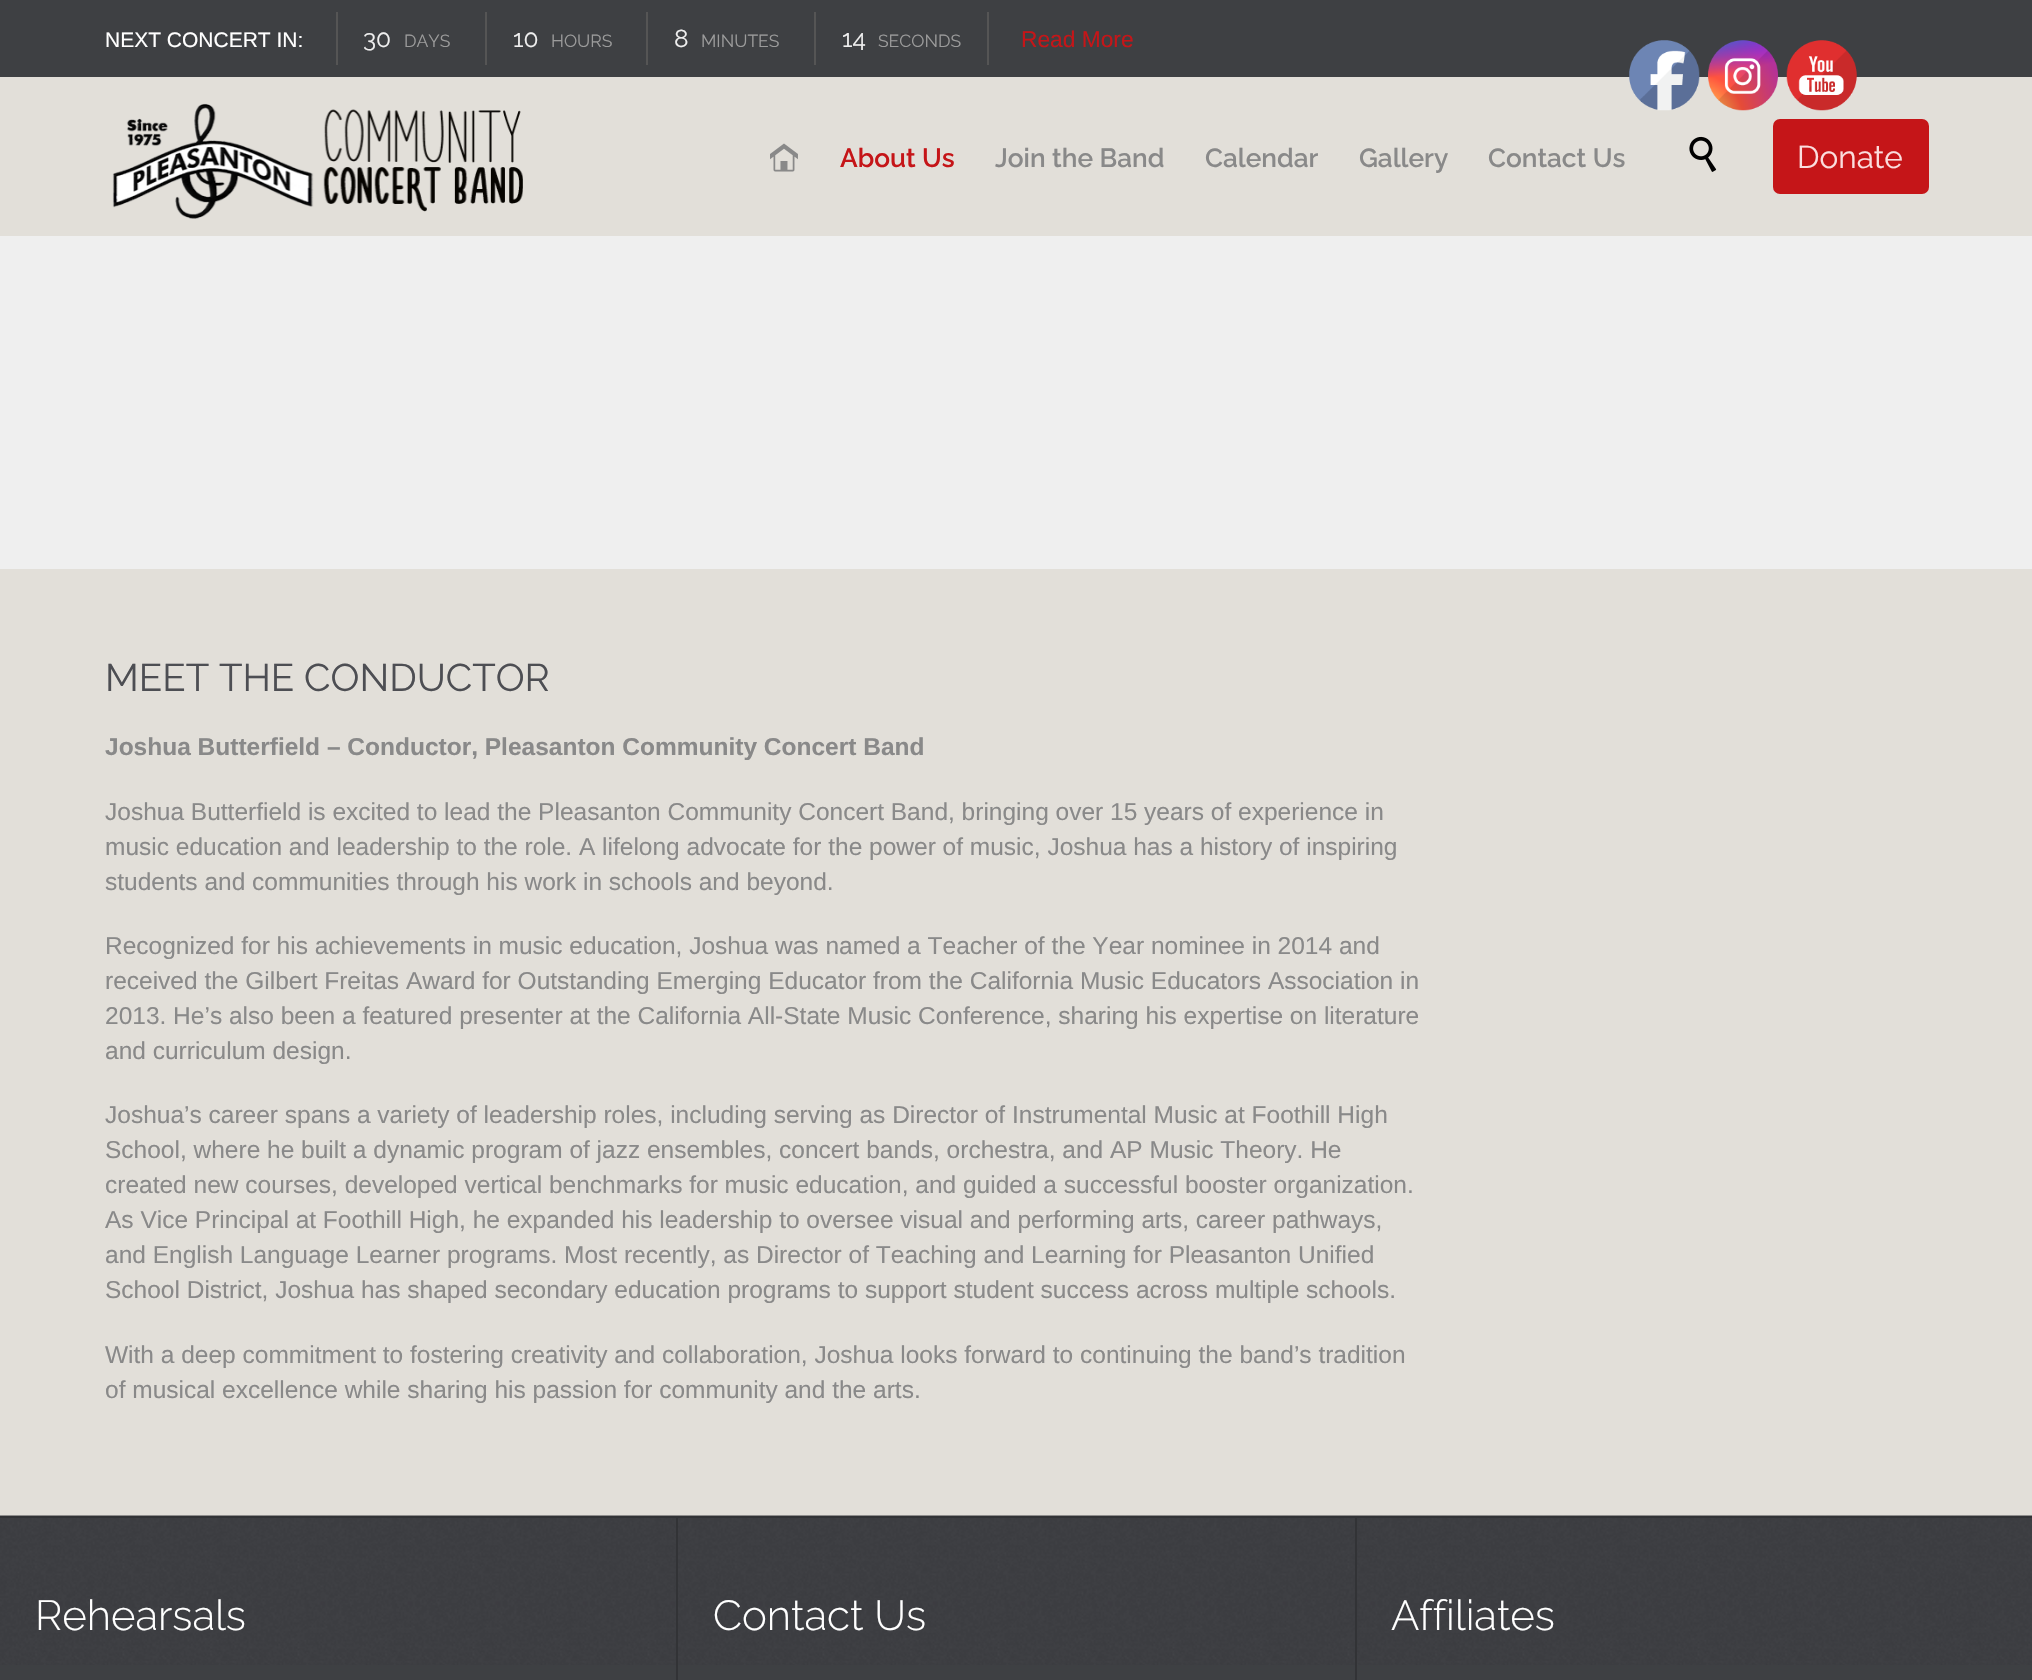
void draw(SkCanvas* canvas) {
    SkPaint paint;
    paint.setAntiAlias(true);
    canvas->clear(0xFFE2DFD9);
    paint.setColor(0xFF3E4043);
    canvas->drawRect(SkRect::MakeXYWH(0, 0, 2032, 77), paint);
    SkFont font1(fontMgr->matchFamilyStyle("Liberation Sans", SkFontStyle::Normal()), 21);
    font1.setSubpixel(true);
    paint.setColor(0xFFFFFFFF);
    canvas->drawString("NEXT CONCERT IN:", 105, 47, font1, paint);
    paint.setColor(0xFF555555);
    canvas->drawRect(SkRect::MakeXYWH(987, 12, 2, 53), paint);
    canvas->drawRect(SkRect::MakeXYWH(336, 12, 2, 53), paint);
    SkFont font2(fontMgr->matchFamilyStyle("Raleway", SkFontStyle::Normal()), 24.5f);
    font2.setSubpixel(true);
    paint.setColor(0xFFEFEFEF);
    canvas->drawString("30", 363, 47, font2, paint);
    SkFont font3(fontMgr->matchFamilyStyle("Raleway", SkFontStyle::Normal()), 17.5f);
    font3.setSubpixel(true);
    paint.setColor(0xFF9B9B9B);
    canvas->drawString("DAYS", 404, 47, font3, paint);
    paint.setColor(0xFF555555);
    canvas->drawRect(SkRect::MakeXYWH(485, 12, 2, 53), paint);
    paint.setColor(0xFFEFEFEF);
    canvas->drawString("10", 513, 47, font2, paint);
    paint.setColor(0xFF9B9B9B);
    canvas->drawString("HOURS", 551, 47, font3, paint);
    paint.setColor(0xFF555555);
    canvas->drawRect(SkRect::MakeXYWH(646, 12, 2, 53), paint);
    paint.setColor(0xFFEFEFEF);
    canvas->drawString("8", 674, 47, font2, paint);
    paint.setColor(0xFF9B9B9B);
    canvas->drawString("MINUTES", 701, 47, font3, paint);
    paint.setColor(0xFF555555);
    canvas->drawRect(SkRect::MakeXYWH(814, 12, 2, 53), paint);
    paint.setColor(0xFFEFEFEF);
    canvas->drawString("14", 842, 47, font2, paint);
    paint.setColor(0xFF9B9B9B);
    canvas->drawString("SECONDS", 878, 47, font3, paint);
    SkFont font4(fontMgr->matchFamilyStyle("Liberation Sans", SkFontStyle::Normal()), 22.75f);
    font4.setSubpixel(true);
    paint.setColor(0xFFC51518);
    canvas->drawString("Read More", 1021, 47, font4, paint);
    canvas->drawImageRect(SkImages::DeferredFromEncodedData(SkData::MakeFromFileName("img1.png")), SkRect::MakeXYWH(112, 103, 411, 116), SkSamplingOptions());
    canvas->drawImageRect(SkImages::DeferredFromEncodedData(SkData::MakeFromFileName("img2.png")), SkRect::MakeXYWH(770, 143, 28, 29), SkSamplingOptions());
    SkFont font5(fontMgr->matchFamilyStyle("Raleway", SkFontStyle(600, SkFontStyle::kNormal_Width, SkFontStyle::kUpright_Slant)), 26.25f);
    font5.setSubpixel(true);
    canvas->drawString("About Us", 840, 167, font5, paint);
    paint.setColor(0xFF898989);
    canvas->drawString("Join the Band", 995, 167, font5, paint);
    canvas->drawString("Calendar", 1205, 167, font5, paint);
    canvas->drawString("Gallery", 1359, 167, font5, paint);
    canvas->drawString("Contact Us", 1488, 167, font5, paint);
    canvas->drawImageRect(SkImages::DeferredFromEncodedData(SkData::MakeFromFileName("img3.png")), SkRect::MakeXYWH(1689, 136, 28, 36), SkSamplingOptions());
    paint.setColor(0xFFC51518);
    canvas->drawRoundRect(SkRect::MakeXYWH(1773, 119, 156, 75), 7, 7, paint);
    SkFont font6(fontMgr->matchFamilyStyle("Raleway", SkFontStyle::Normal()), 31.5f);
    font6.setSubpixel(true);
    paint.setColor(0xFFFBDEDE);
    canvas->drawString("Donate", 1797, 168, font6, paint);
    paint.setColor(0xFFEFEFEF);
    canvas->drawRect(SkRect::MakeXYWH(0, 236, 2032, 333), paint);
    SkFont font7(fontMgr->matchFamilyStyle("Raleway", SkFontStyle::Normal()), 38.5f);
    font7.setSubpixel(true);
    paint.setColor(0xFF4D4E53);
    canvas->drawString("MEET THE CONDUCTOR", 105, 691, font7, paint);
    SkFont font8(fontMgr->matchFamilyStyle("Liberation Sans", SkFontStyle::Bold()), 24.5f);
    font8.setSubpixel(true);
    paint.setColor(0xFF898989);
    canvas->drawString("Joshua Butterfield – Conductor, Pleasanton Community Concert Band", 105, 755, font8, paint);
    SkFont font9(fontMgr->matchFamilyStyle("Liberation Sans", SkFontStyle::Normal()), 24.5f);
    font9.setSubpixel(true);
    canvas->drawString("Joshua Butterfield is excited to lead the Pleasanton Community Concert Band, bringing over 15 years of experience in", 105, 820, font9, paint);
    canvas->drawString("music education and leadership to the role. A lifelong advocate for the power of music, Joshua has a history of inspiring", 105, 855, font9, paint);
    canvas->drawString("students and communities through his work in schools and beyond.", 105, 890, font9, paint);
    canvas->drawString("Recognized for his achievements in music education, Joshua was named a Teacher of the Year nominee in 2014 and", 105, 954, font9, paint);
    canvas->drawString("received the Gilbert Freitas Award for Outstanding Emerging Educator from the California Music Educators Association in", 105, 989, font9, paint);
    canvas->drawString("2013. He’s also been a featured presenter at the California All-State Music Conference, sharing his expertise on literature", 105, 1024, font9, paint);
    canvas->drawString("and curriculum design.", 105, 1059, font9, paint);
    canvas->drawString("Joshua’s career spans a variety of leadership roles, including serving as Director of Instrumental Music at Foothill High", 105, 1123, font9, paint);
    canvas->drawString("School, where he built a dynamic program of jazz ensembles, concert bands, orchestra, and AP Music Theory. He", 105, 1158, font9, paint);
    canvas->drawString("created new courses, developed vertical benchmarks for music education, and guided a successful booster organization.", 105, 1193, font9, paint);
    canvas->drawString("As Vice Principal at Foothill High, he expanded his leadership to oversee visual and performing arts, career pathways,", 105, 1228, font9, paint);
    canvas->drawString("and English Language Learner programs. Most recently, as Director of Teaching and Learning for Pleasanton Unified", 105, 1263, font9, paint);
    canvas->drawString("School District, Joshua has shaped secondary education programs to support student success across multiple schools.", 105, 1298, font9, paint);
    canvas->drawString("With a deep commitment to fostering creativity and collaboration, Joshua looks forward to continuing the band’s tradition", 105, 1363, font9, paint);
    canvas->drawString("of musical excellence while sharing his passion for community and the arts.", 105, 1398, font9, paint);
    paint.setColor(0xFF3E4043);
    canvas->drawRect(SkRect::MakeXYWH(0, 1665, 2032, 15), paint);
    canvas->drawImageRect(SkImages::DeferredFromEncodedData(SkData::MakeFromFileName("img4.png")), SkRect::MakeXYWH(0, 1515, 2032, 150), SkSamplingOptions());
    paint.setColor(0xFF323336);
    canvas->drawRect(SkRect::MakeXYWH(0, 1516, 2032, 2), paint);
    canvas->drawRect(SkRect::MakeXYWH(676, 1517, 2, 163), paint);
    SkFont font10(fontMgr->matchFamilyStyle("Raleway", SkFontStyle(300, SkFontStyle::kNormal_Width, SkFontStyle::kUpright_Slant)), 42);
    font10.setSubpixel(true);
    paint.setColor(0xFFFFFFFF);
    canvas->drawString("Rehearsals", 35, 1630, font10, paint);
    paint.setColor(0xFF323336);
    canvas->drawRect(SkRect::MakeXYWH(1355, 1517, 2, 163), paint);
    paint.setColor(0xFFFFFFFF);
    canvas->drawString("Contact Us", 713, 1630, font10, paint);
    canvas->drawString("Affiliates", 1391, 1630, font10, paint);
    canvas->drawImageRect(SkImages::DeferredFromEncodedData(SkData::MakeFromFileName("img5.png")), SkRect::MakeXYWH(1629, 40, 71, 71), SkSamplingOptions());
    canvas->drawImageRect(SkImages::DeferredFromEncodedData(SkData::MakeFromFileName("img6.png")), SkRect::MakeXYWH(1708, 40, 70, 71), SkSamplingOptions());
    canvas->drawImageRect(SkImages::DeferredFromEncodedData(SkData::MakeFromFileName("img7.png")), SkRect::MakeXYWH(1786, 40, 71, 71), SkSamplingOptions());
}
